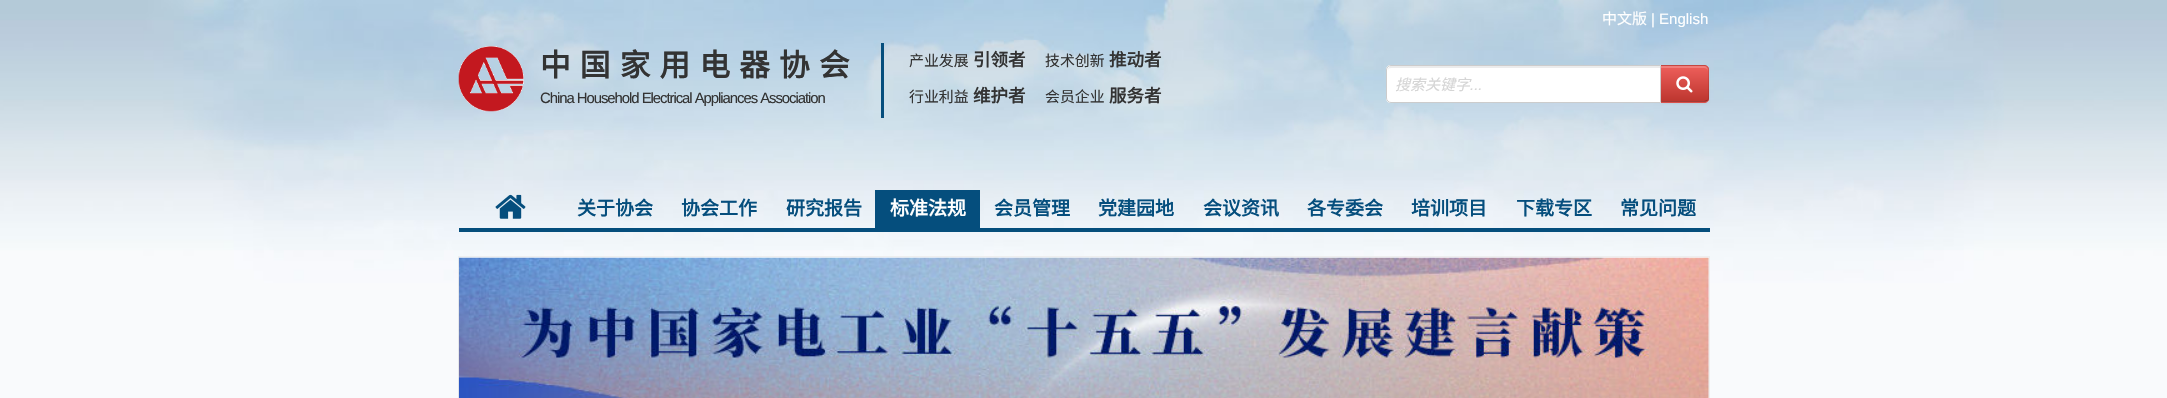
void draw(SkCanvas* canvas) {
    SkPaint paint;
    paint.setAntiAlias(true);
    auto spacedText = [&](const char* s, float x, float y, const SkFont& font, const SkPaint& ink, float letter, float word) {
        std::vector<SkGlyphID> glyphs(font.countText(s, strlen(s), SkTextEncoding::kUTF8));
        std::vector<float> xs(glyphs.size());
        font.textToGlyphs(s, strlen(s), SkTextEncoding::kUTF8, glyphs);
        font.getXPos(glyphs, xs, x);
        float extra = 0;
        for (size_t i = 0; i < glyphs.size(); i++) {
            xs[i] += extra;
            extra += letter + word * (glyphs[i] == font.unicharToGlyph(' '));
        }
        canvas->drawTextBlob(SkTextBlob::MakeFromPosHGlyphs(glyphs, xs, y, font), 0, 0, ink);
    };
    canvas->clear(0xFFF9FAFC);
    canvas->drawImageRect(SkImages::DeferredFromEncodedData(SkData::MakeFromFileName("img1.png")), SkRect::MakeXYWH(0, 0, 2167, 283), SkSamplingOptions());
    SkFont font1(fontMgr->matchFamilyStyle("Noto Sans CJK SC", SkFontStyle::Normal()), 15);
    font1.setSubpixel(true);
    paint.setColor(0xFFFFFFFF);
    canvas->drawString("中文版", 1602, 24, font1, paint);
    SkFont font2(fontMgr->matchFamilyStyle("Liberation Sans", SkFontStyle::Normal()), 15);
    font2.setSubpixel(true);
    canvas->drawString("| English", 1651, 24, font2, paint);
    canvas->drawImageRect(SkImages::DeferredFromEncodedData(SkData::MakeFromFileName("img2.png")), SkRect::MakeXYWH(458, 46, 66, 66), SkSamplingOptions());
    paint.setColor(0xFF054E7D);
    canvas->drawRect(SkRect::MakeXYWH(881, 43, 3, 75), paint);
    SkFont font3(fontMgr->matchFamilyStyle("Noto Sans CJK SC", SkFontStyle::Bold()), 30.6f);
    font3.setSubpixel(true);
    paint.setColor(0xFF333333);
    spacedText("中国家用电器协会", 540, 76, font3, paint, 9.25f, 0);
    SkFont font4(fontMgr->matchFamilyStyle("Liberation Sans", SkFontStyle::Normal()), 14.9f);
    font4.setSubpixel(true);
    spacedText("China Household Electrical Appliances Association", 540, 103, font4, paint, -1.05f, 0);
    SkFont font5(fontMgr->matchFamilyStyle("Noto Sans CJK SC", SkFontStyle::Normal()), 14.9f);
    font5.setSubpixel(true);
    canvas->drawString("产业发展", 909, 66, font5, paint);
    SkFont font6(fontMgr->matchFamilyStyle("Noto Sans CJK SC", SkFontStyle::Bold()), 17.5f);
    font6.setSubpixel(true);
    canvas->drawString("引领者", 973, 66, font6, paint);
    canvas->drawString("技术创新", 1045, 66, font5, paint);
    canvas->drawString("推动者", 1109, 66, font6, paint);
    canvas->drawString("行业利益", 909, 102, font5, paint);
    canvas->drawString("维护者", 973, 102, font6, paint);
    canvas->drawString("会员企业", 1045, 102, font5, paint);
    canvas->drawString("服务者", 1109, 102, font6, paint);
    paint.setColor(0x0D000000);
    paint.setMaskFilter(SkMaskFilter::MakeBlur(kNormal_SkBlurStyle, 1));
    canvas->drawRoundRect(SkRect::MakeXYWH(1660, 66, 49, 38), 5, 5, paint);
    paint.setMaskFilter(nullptr);
    paint.setColor(0xFFDA4F49);
    canvas->drawPath(SkPathBuilder().moveTo(1660, 65).lineTo(1704, 65).cubicTo(1707, 65, 1709, 67, 1709, 70).lineTo(1709, 98).cubicTo(1709, 101, 1707, 103, 1704, 103).lineTo(1660, 103).close().detach(), paint);
    canvas->save();
    canvas->clipPath(SkPathBuilder().moveTo(1660, 65).lineTo(1704, 65).cubicTo(1707, 65, 1709, 67, 1709, 70).lineTo(1709, 98).cubicTo(1709, 101, 1707, 103, 1704, 103).lineTo(1660, 103).close().detach(), true);
    {
        const SkColor colors[] = {0xFFEE5F5B, 0xFFBD362F};
        const float stops[] = {0, 1};
        const SkPoint ends[] = {{1684, 66}, {1684, 101}};
        paint.setShader(SkGradientShader::MakeLinear(ends, colors, stops, 2, SkTileMode::kClamp));
        paint.setAlpha(255);
    }
    canvas->drawRect(SkRect::MakeXYWH(1661, 66, 48, 35), paint);
    canvas->restore();
    paint.setShader(nullptr);
    paint.setColor(0xFFF07E7B);
    canvas->drawPath(SkPathBuilder().moveTo(1661, 68).lineTo(1704, 68).cubicTo(1706, 68, 1708, 69, 1708, 71).lineTo(1708, 70).cubicTo(1708, 68, 1706, 66, 1704, 66).lineTo(1661, 66).close().detach(), paint);
    paint.setColor(0x1A000000);
    canvas->drawPath(SkPathBuilder().moveTo(1660, 65).lineTo(1661, 66).lineTo(1704, 66).cubicTo(1705, 66, 1706, 66, 1707, 67).lineTo(1707, 66).cubicTo(1707, 65, 1705, 65, 1704, 65).close().detach(), paint);
    canvas->drawPath(SkPathBuilder().moveTo(1709, 99).lineTo(1707.5f, 101).lineTo(1706.5f, 100.5f).cubicTo(1707.5f, 100, 1708, 99, 1708, 98).lineTo(1708, 70).cubicTo(1708, 69, 1707.5f, 68, 1706.5f, 67).lineTo(1707.5f, 66.5f).lineTo(1709, 68.5f).close().detach(), paint);
    paint.setColor(0x40000000);
    canvas->drawPath(SkPathBuilder().moveTo(1707, 101).cubicTo(1706, 102, 1705, 102, 1704, 102).lineTo(1660, 102).lineTo(1662, 101).lineTo(1704, 101).lineTo(1707, 100).close().detach(), paint);
    paint.setColor(0xFFFFFFFF);
    canvas->drawPath(SkPathBuilder().moveTo(1391, 65).lineTo(1661, 65).lineTo(1661, 103).lineTo(1391, 103).cubicTo(1388, 103, 1386, 101, 1386, 98).lineTo(1386, 70).cubicTo(1386, 67, 1388, 65, 1391, 65).close().detach(), paint);
    paint.setColor(0xFFECECEC);
    canvas->drawPath(SkPathBuilder().moveTo(1391, 68).lineTo(1660, 68).lineTo(1660, 66).lineTo(1392, 66).cubicTo(1389, 66, 1388, 68, 1388, 71).cubicTo(1388, 69, 1389, 68, 1391, 68).close().detach(), paint);
    paint.setStyle(SkPaint::kStroke_Style);
    paint.setStrokeWidth(1);
    paint.setColor(0xFFCCCCCC);
    canvas->drawPath(SkPathBuilder().moveTo(1391, 65.5f).lineTo(1660.5f, 65.5f).lineTo(1660.5f, 102.5f).lineTo(1391, 102.5f).cubicTo(1388.5f, 102.5f, 1386.5f, 100.5f, 1386.5f, 98).lineTo(1386.5f, 70).cubicTo(1386.5f, 67.5f, 1388.5f, 65.5f, 1391, 65.5f).close().detach(), paint);
    SkFont font7(fontMgr->matchFamilyStyle("Noto Sans CJK SC", SkFontStyle::Italic()), 15);
    font7.setSubpixel(true);
    paint.setStyle(SkPaint::kFill_Style);
    paint.setColor(0xFFD5D5D5);
    canvas->drawString("搜索关键字", 1395, 90, font7, paint);
    SkFont font8(fontMgr->matchFamilyStyle("Liberation Sans", SkFontStyle::Italic()), 15);
    font8.setSubpixel(true);
    canvas->drawString("...", 1470, 90, font8, paint);
    canvas->drawImageRect(SkImages::DeferredFromEncodedData(SkData::MakeFromFileName("img3.png")), SkRect::MakeXYWH(1676, 76, 17, 17), SkSamplingOptions());
    paint.setColor(0xFF054E7D);
    canvas->drawRect(SkRect::MakeXYWH(459, 228, 1251, 4), paint);
    canvas->drawImageRect(SkImages::DeferredFromEncodedData(SkData::MakeFromFileName("img4.png")), SkRect::MakeXYWH(495, 194, 31, 25), SkSamplingOptions());
    SkFont font9(fontMgr->matchFamilyStyle("Noto Sans CJK SC", SkFontStyle::Bold()), 19);
    font9.setSubpixel(true);
    canvas->drawString("关于协会", 577, 215, font9, paint);
    canvas->drawString("协会工作", 681, 215, font9, paint);
    canvas->drawString("研究报告", 786, 215, font9, paint);
    canvas->drawRect(SkRect::MakeXYWH(875, 190, 105, 38), paint);
    paint.setColor(0xFFFFFFFF);
    canvas->drawString("标准法规", 890, 215, font9, paint);
    paint.setColor(0xFF054E7D);
    canvas->drawString("会员管理", 994, 215, font9, paint);
    canvas->drawString("党建园地", 1098, 215, font9, paint);
    canvas->drawString("会议资讯", 1203, 215, font9, paint);
    canvas->drawString("各专委会", 1307, 215, font9, paint);
    canvas->drawString("培训项目", 1411, 215, font9, paint);
    canvas->drawString("下载专区", 1516, 215, font9, paint);
    canvas->drawString("常见问题", 1620, 215, font9, paint);
    paint.setStyle(SkPaint::kStroke_Style);
    paint.setColor(0xFFEEEEEE);
    canvas->drawRect(SkRect::MakeXYWH(458.5f, 256.5f, 1251, 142), paint);
    canvas->drawImageRect(SkImages::DeferredFromEncodedData(SkData::MakeFromFileName("img5.png")), SkRect::MakeXYWH(458, 257, 1251, 141), SkSamplingOptions());
}
